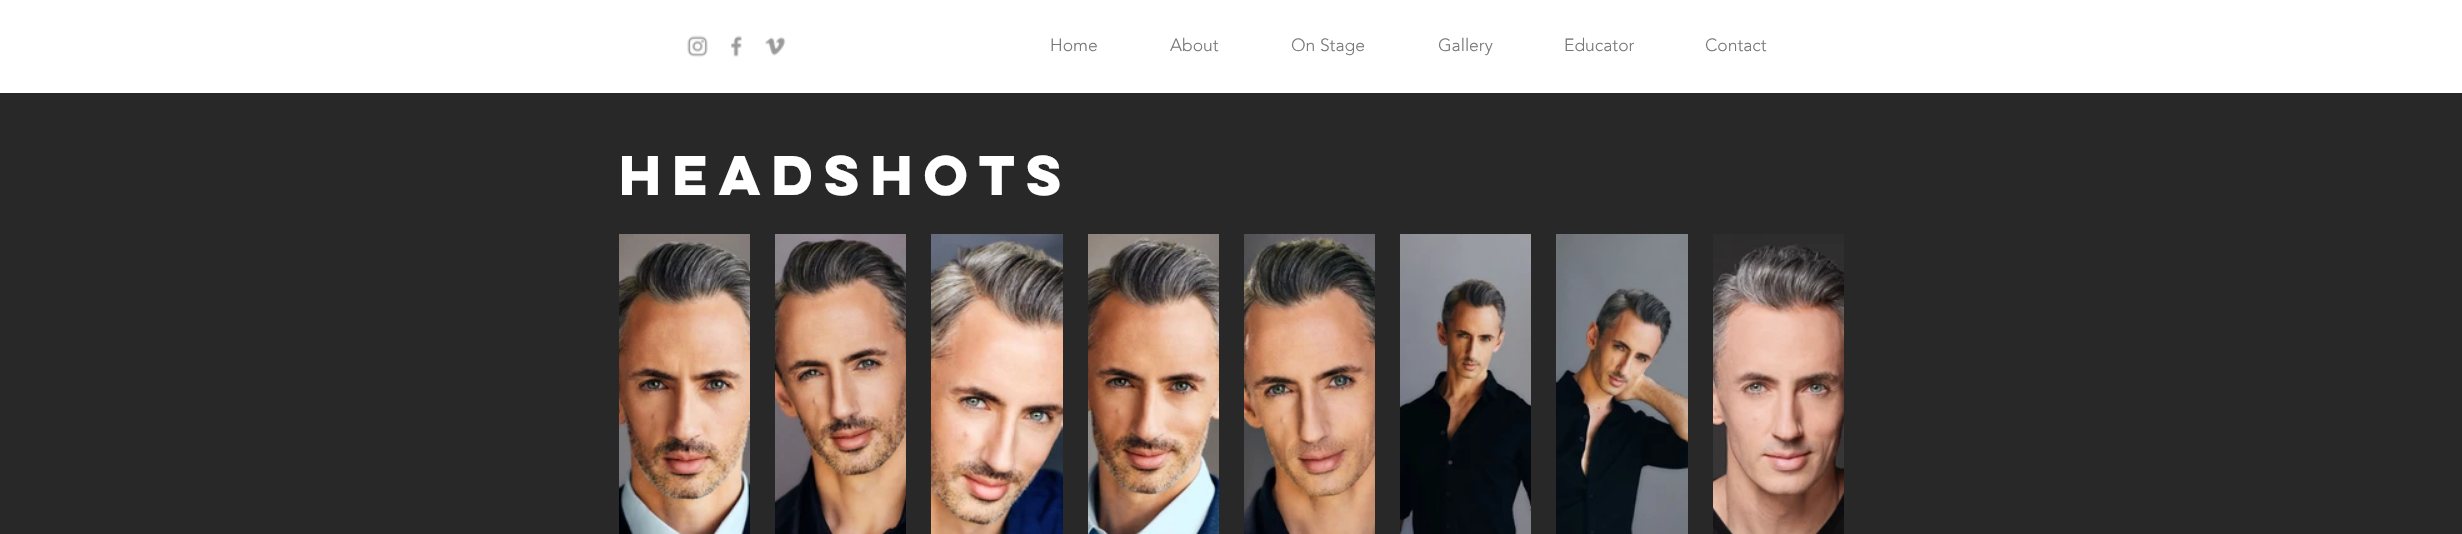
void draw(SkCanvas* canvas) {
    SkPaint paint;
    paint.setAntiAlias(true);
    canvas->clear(0xFF282828);
    paint.setColor(0xFFFFFFFF);
    canvas->drawRect(SkRect::MakeXYWH(0, 0, 2462, 93), paint);
    canvas->drawImageRect(SkImages::DeferredFromEncodedData(SkData::MakeFromFileName("img1.png")), SkRect::MakeXYWH(687, 35, 21, 22), SkSamplingOptions());
    canvas->drawImageRect(SkImages::DeferredFromEncodedData(SkData::MakeFromFileName("img2.png")), SkRect::MakeXYWH(731, 35, 11, 22), SkSamplingOptions());
    canvas->drawImageRect(SkImages::DeferredFromEncodedData(SkData::MakeFromFileName("img3.png")), SkRect::MakeXYWH(765, 36, 21, 20), SkSamplingOptions());
    SkFont font1(fontMgr->matchFamilyStyle("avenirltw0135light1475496", SkFontStyle(300, SkFontStyle::kNormal_Width, SkFontStyle::kUpright_Slant)), 17.5f);
    font1.setSubpixel(true);
    paint.setColor(0xFF787877);
    canvas->drawString("Home", 1050, 51, font1, paint);
    canvas->drawString("About", 1170, 51, font1, paint);
    canvas->drawString("On Stage", 1291, 51, font1, paint);
    canvas->drawString("Gallery", 1438, 51, font1, paint);
    canvas->drawString("Educator", 1564, 51, font1, paint);
    canvas->drawString("Contact", 1705, 51, font1, paint);
    SkFont font2(fontMgr->matchFamilyStyle("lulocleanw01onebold", SkFontStyle::Bold()), 50);
    font2.setSubpixel(true);
    paint.setColor(0xFFFFFFFF);
    canvas->drawString("Headshots", 619, 195, font2, paint);
    canvas->drawImageRect(SkImages::DeferredFromEncodedData(SkData::MakeFromFileName("img4.png")), SkRect::MakeXYWH(619, 234, 131, 300), SkSamplingOptions());
    canvas->drawImageRect(SkImages::DeferredFromEncodedData(SkData::MakeFromFileName("img5.png")), SkRect::MakeXYWH(775, 234, 131, 300), SkSamplingOptions());
    canvas->drawImageRect(SkImages::DeferredFromEncodedData(SkData::MakeFromFileName("img6.png")), SkRect::MakeXYWH(931, 234, 132, 300), SkSamplingOptions());
    canvas->drawImageRect(SkImages::DeferredFromEncodedData(SkData::MakeFromFileName("img7.png")), SkRect::MakeXYWH(1088, 234, 131, 300), SkSamplingOptions());
    canvas->drawImageRect(SkImages::DeferredFromEncodedData(SkData::MakeFromFileName("img8.png")), SkRect::MakeXYWH(1244, 234, 131, 300), SkSamplingOptions());
    canvas->drawImageRect(SkImages::DeferredFromEncodedData(SkData::MakeFromFileName("img9.png")), SkRect::MakeXYWH(1400, 234, 131, 300), SkSamplingOptions());
    canvas->drawImageRect(SkImages::DeferredFromEncodedData(SkData::MakeFromFileName("img10.png")), SkRect::MakeXYWH(1556, 234, 132, 300), SkSamplingOptions());
    canvas->drawImageRect(SkImages::DeferredFromEncodedData(SkData::MakeFromFileName("img11.png")), SkRect::MakeXYWH(1713, 234, 131, 300), SkSamplingOptions());
}
